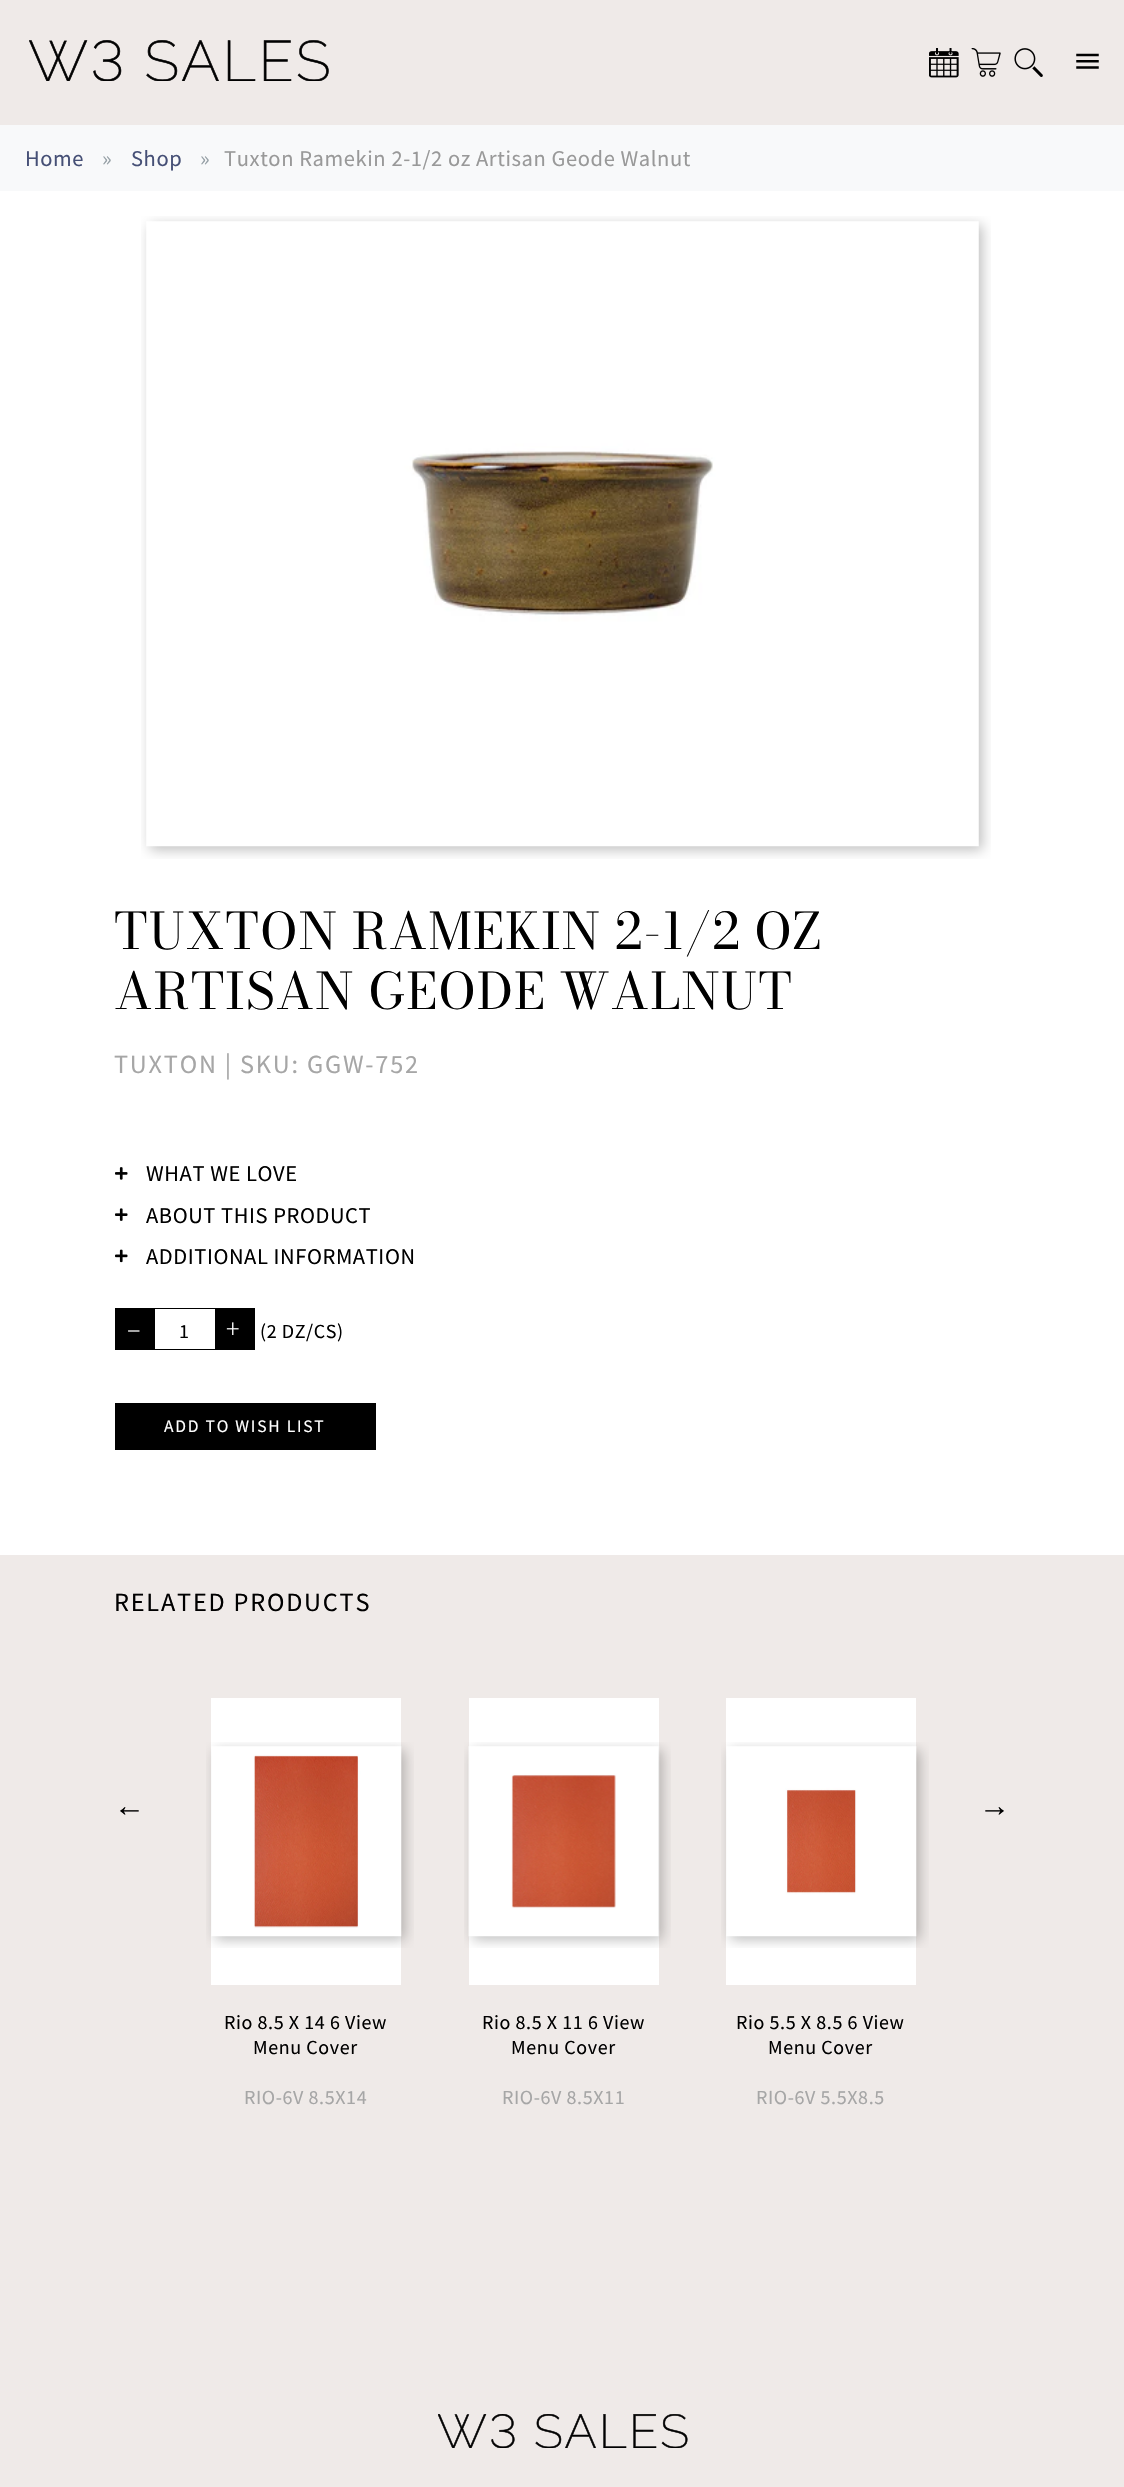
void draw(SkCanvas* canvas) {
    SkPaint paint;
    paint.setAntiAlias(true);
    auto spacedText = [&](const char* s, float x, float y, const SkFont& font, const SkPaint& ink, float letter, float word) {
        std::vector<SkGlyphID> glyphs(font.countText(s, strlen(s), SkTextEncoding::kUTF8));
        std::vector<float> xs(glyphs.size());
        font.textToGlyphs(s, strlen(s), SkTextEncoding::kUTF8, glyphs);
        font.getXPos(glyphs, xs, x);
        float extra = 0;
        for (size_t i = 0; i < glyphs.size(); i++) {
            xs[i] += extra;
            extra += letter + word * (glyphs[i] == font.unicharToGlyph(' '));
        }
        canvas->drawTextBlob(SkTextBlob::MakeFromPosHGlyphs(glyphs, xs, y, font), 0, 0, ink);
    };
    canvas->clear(0xFFEFEAE8);
    canvas->drawImageRect(SkImages::DeferredFromEncodedData(SkData::MakeFromFileName("img1.png")), SkRect::MakeXYWH(29, 40, 300, 41), SkSamplingOptions());
    canvas->drawImageRect(SkImages::DeferredFromEncodedData(SkData::MakeFromFileName("img2.png")), SkRect::MakeXYWH(929, 48, 30, 30), SkSamplingOptions());
    canvas->drawImageRect(SkImages::DeferredFromEncodedData(SkData::MakeFromFileName("img3.png")), SkRect::MakeXYWH(971, 48, 30, 29), SkSamplingOptions());
    canvas->drawImageRect(SkImages::DeferredFromEncodedData(SkData::MakeFromFileName("img4.png")), SkRect::MakeXYWH(1014, 48, 29, 29), SkSamplingOptions());
    canvas->drawImageRect(SkImages::DeferredFromEncodedData(SkData::MakeFromFileName("img5.png")), SkRect::MakeXYWH(1076, 53, 23, 16), SkSamplingOptions());
    paint.setColor(0xFFFFFFFF);
    canvas->drawRect(SkRect::MakeXYWH(0, 191, 1124, 1364), paint);
    paint.setColor(0xFFF8F9FA);
    canvas->drawRect(SkRect::MakeXYWH(0, 125, 1124, 66), paint);
    SkFont font1(fontMgr->matchFamilyStyle("Source Sans Pro", SkFontStyle::Normal()), 22.5f);
    font1.setSubpixel(true);
    paint.setColor(0xFF465076);
    spacedText("Home", 25, 166, font1, paint, 0.6f, 0);
    paint.setColor(0xFF959FA5);
    spacedText("»", 102, 166, font1, paint, 0.6f, 0);
    paint.setColor(0xFF465076);
    spacedText("Shop", 131, 166, font1, paint, 0.6f, 0);
    paint.setColor(0xFF959FA5);
    spacedText("»", 200, 166, font1, paint, 0.6f, 0);
    paint.setColor(0xFF999999);
    spacedText("Tuxton Ramekin 2-1/2 oz Artisan Geode Walnut", 224, 166, font1, paint, 0.6f, 0);
    canvas->drawImageRect(SkImages::DeferredFromEncodedData(SkData::MakeFromFileName("img6.png")), SkRect::MakeXYWH(141, 216, 850, 643), SkSamplingOptions());
    SkFont font2(fontMgr->matchFamilyStyle("Bodoni Moda", SkFontStyle::Normal()), 50);
    font2.setSubpixel(true);
    paint.setColor(0xFF000000);
    spacedText("TUXTON RAMEKIN 2-1/2 OZ", 114, 949, font2, paint, 1, 0);
    spacedText("ARTISAN GEODE WALNUT", 114, 1009, font2, paint, 1, 0);
    SkFont font3(fontMgr->matchFamilyStyle("Source Sans Pro", SkFontStyle::Normal()), 26.25f);
    font3.setSubpixel(true);
    paint.setColor(0xFFA6A6A6);
    spacedText("TUXTON | SKU: GGW-752", 114, 1073, font3, paint, 1.8f, 0);
    canvas->drawImageRect(SkImages::DeferredFromEncodedData(SkData::MakeFromFileName("img7.png")), SkRect::MakeXYWH(115, 1167, 13, 13), SkSamplingOptions());
    paint.setColor(0xFF000000);
    spacedText("WHAT WE LOVE", 146, 1181, font1, paint, 0.6f, 0);
    canvas->drawImageRect(SkImages::DeferredFromEncodedData(SkData::MakeFromFileName("img8.png")), SkRect::MakeXYWH(115, 1208, 13, 13), SkSamplingOptions());
    spacedText("ABOUT THIS PRODUCT", 146, 1223, font1, paint, 0.6f, 0);
    canvas->drawImageRect(SkImages::DeferredFromEncodedData(SkData::MakeFromFileName("img9.png")), SkRect::MakeXYWH(115, 1249, 13, 14), SkSamplingOptions());
    spacedText("ADDITIONAL INFORMATION", 146, 1264, font1, paint, 0.6f, 0);
    paint.setStyle(SkPaint::kStroke_Style);
    paint.setStrokeWidth(1);
    canvas->drawRect(SkRect::MakeXYWH(115.5f, 1308.5f, 139, 41), paint);
    paint.setStyle(SkPaint::kFill_Style);
    canvas->drawRect(SkRect::MakeXYWH(116, 1309, 39, 40), paint);
    SkFont font4(fontMgr->matchFamilyStyle("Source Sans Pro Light", SkFontStyle(300, SkFontStyle::kNormal_Width, SkFontStyle::kUpright_Slant)), 28);
    font4.setSubpixel(true);
    paint.setColor(0xFFFFFFFF);
    spacedText("–", 127, 1338, font4, paint, 3, 0);
    SkFont font5(fontMgr->matchFamilyStyle("Source Sans Pro", SkFontStyle::Normal()), 20);
    font5.setSubpixel(true);
    paint.setColor(0xFF000000);
    spacedText("1", 179, 1338, font5, paint, 2, 0);
    canvas->drawRect(SkRect::MakeXYWH(215, 1309, 39, 40), paint);
    paint.setColor(0xFFFFFFFF);
    spacedText("+", 226, 1338, font4, paint, 3, 0);
    paint.setColor(0xFF000000);
    spacedText("(2 DZ/CS)", 260, 1338, font5, paint, 0.6f, 0);
    canvas->drawRect(SkRect::MakeXYWH(115, 1403, 261, 47), paint);
    SkFont font6(fontMgr->matchFamilyStyle("Source Sans Pro", SkFontStyle::Normal()), 17.5f);
    font6.setSubpixel(true);
    paint.setColor(0xFFFFFFFF);
    spacedText("ADD TO WISH LIST", 164, 1432, font6, paint, 1.75f, 0);
    paint.setColor(0xFF000000);
    spacedText("RELATED PRODUCTS", 114, 1611, font3, paint, 1.8f, 0);
    SkFont font7(fontMgr->matchFamilyStyle("Liberation Serif", SkFontStyle::Normal()), 31);
    font7.setSubpixel(true);
    spacedText("←", 114, 1816, font7, paint, 0.6f, 0);
    spacedText("→", 979, 1816, font7, paint, 0.6f, 0);
    paint.setColor(0xFFFFFFFF);
    canvas->drawRect(SkRect::MakeXYWH(211, 1698, 190, 287), paint);
    canvas->drawImageRect(SkImages::DeferredFromEncodedData(SkData::MakeFromFileName("img10.png")), SkRect::MakeXYWH(206, 1742, 208, 206), SkSamplingOptions());
    paint.setColor(0xFF000000);
    spacedText("Rio 8.5 X 14 6 View", 224, 2029, font5, paint, 0.6f, 0);
    spacedText("Menu Cover", 253, 2054, font5, paint, 0.6f, 0);
    paint.setColor(0xFFA6A6A6);
    spacedText("RIO-6V 8.5X14", 244, 2104, font5, paint, 0.6f, 0);
    paint.setColor(0xFFFFFFFF);
    canvas->drawRect(SkRect::MakeXYWH(469, 1698, 190, 287), paint);
    canvas->drawImageRect(SkImages::DeferredFromEncodedData(SkData::MakeFromFileName("img11.png")), SkRect::MakeXYWH(464, 1742, 207, 206), SkSamplingOptions());
    paint.setColor(0xFF000000);
    spacedText("Rio 8.5 X 11 6 View", 482, 2029, font5, paint, 0.6f, 0);
    spacedText("Menu Cover", 511, 2054, font5, paint, 0.6f, 0);
    paint.setColor(0xFFA6A6A6);
    spacedText("RIO-6V 8.5X11", 502, 2104, font5, paint, 0.6f, 0);
    paint.setColor(0xFFFFFFFF);
    canvas->drawRect(SkRect::MakeXYWH(726, 1698, 190, 287), paint);
    canvas->drawImageRect(SkImages::DeferredFromEncodedData(SkData::MakeFromFileName("img12.png")), SkRect::MakeXYWH(721, 1742, 208, 206), SkSamplingOptions());
    paint.setColor(0xFF000000);
    spacedText("Rio 5.5 X 8.5 6 View", 736, 2029, font5, paint, 0.6f, 0);
    spacedText("Menu Cover", 768, 2054, font5, paint, 0.6f, 0);
    paint.setColor(0xFFA6A6A6);
    spacedText("RIO-6V 5.5X8.5", 756, 2104, font5, paint, 0.6f, 0);
    canvas->drawImageRect(SkImages::DeferredFromEncodedData(SkData::MakeFromFileName("img13.png")), SkRect::MakeXYWH(438, 2414, 250, 34), SkSamplingOptions());
}
